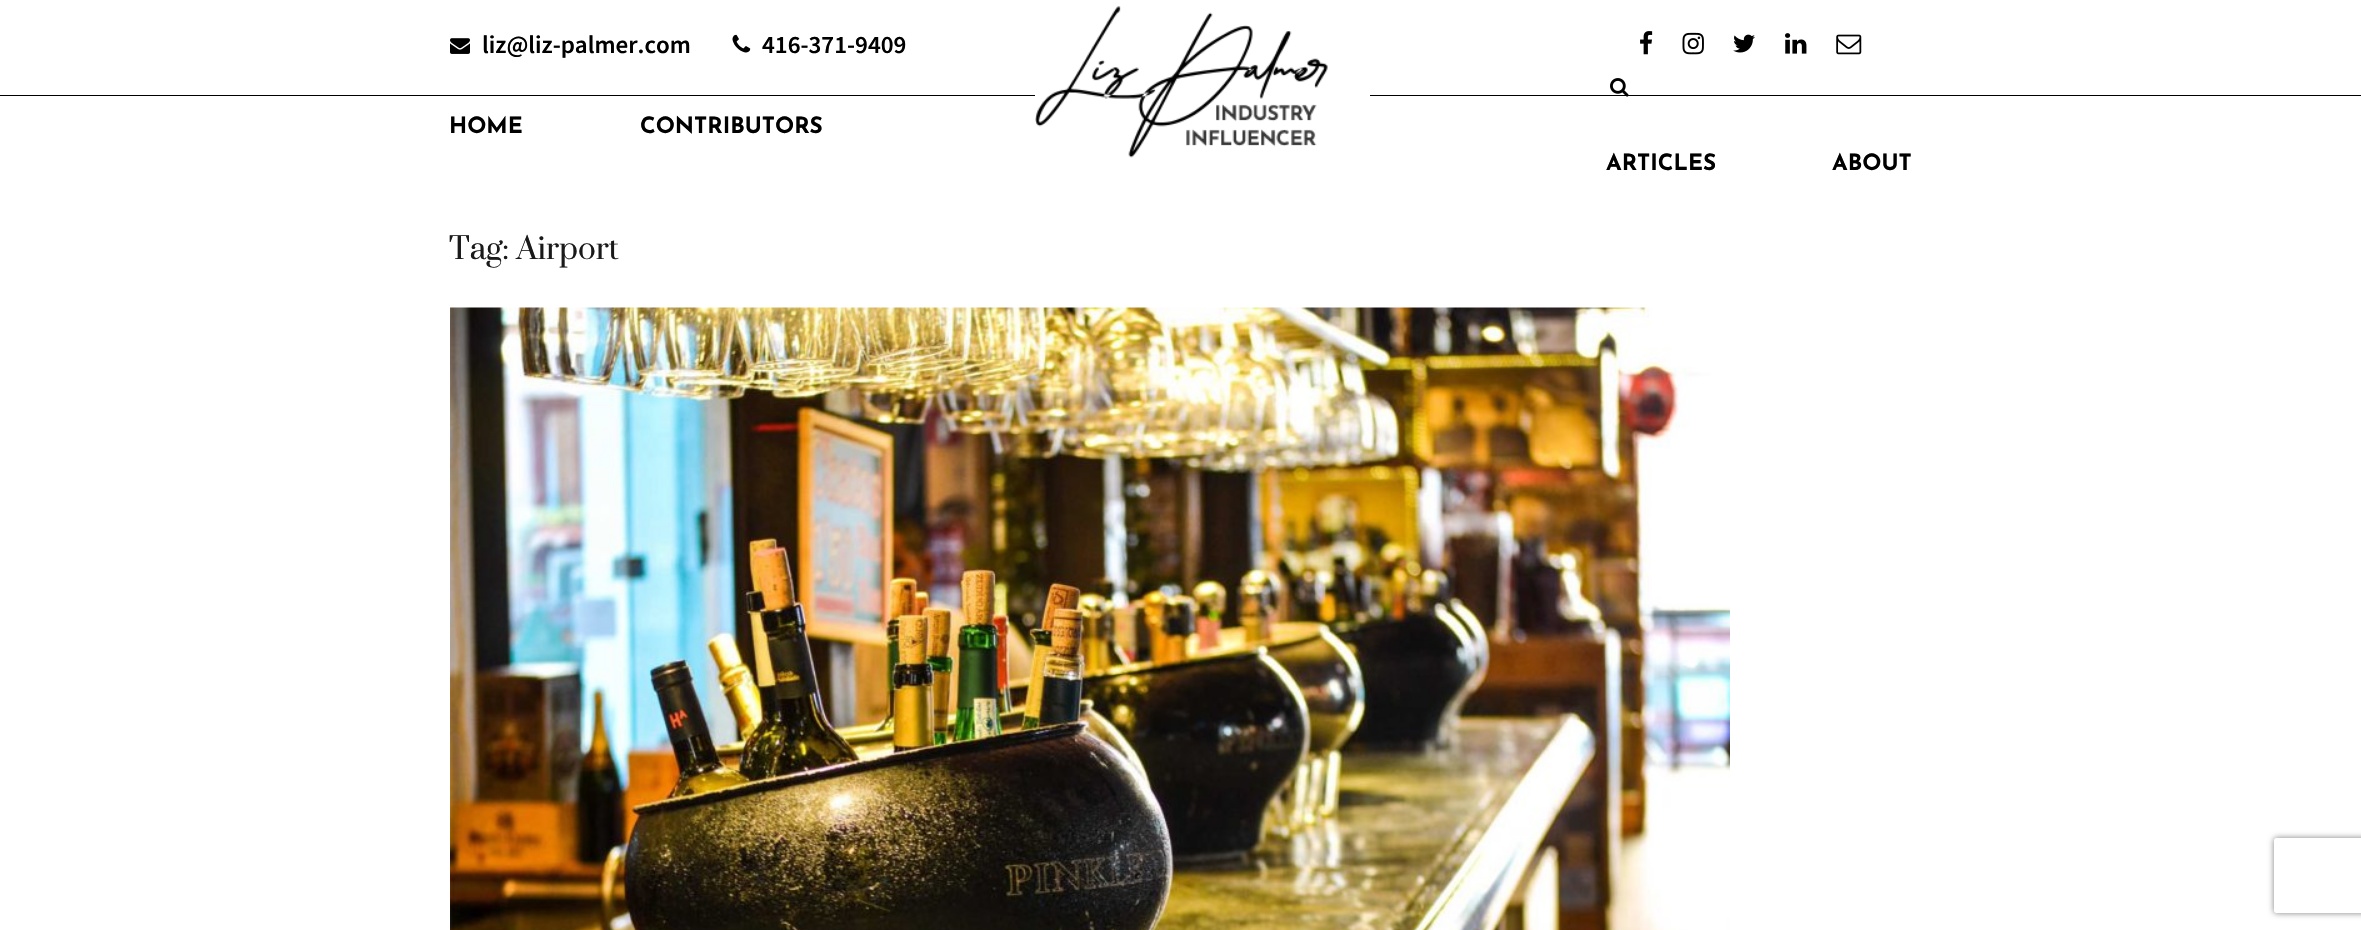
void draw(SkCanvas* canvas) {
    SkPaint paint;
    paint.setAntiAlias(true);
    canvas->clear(0xFFFFFFFF);
    canvas->drawImageRect(SkImages::DeferredFromEncodedData(SkData::MakeFromFileName("img1.png")), SkRect::MakeXYWH(450, 38, 20, 16), SkSamplingOptions());
    SkFont font1(fontMgr->matchFamilyStyle("Source Sans Pro", SkFontStyle(600, SkFontStyle::kNormal_Width, SkFontStyle::kUpright_Slant)), 25);
    font1.setSubpixel(true);
    paint.setColor(0xFF000000);
    canvas->drawString("liz@liz-palmer.com", 482, 53, font1, paint);
    canvas->drawImageRect(SkImages::DeferredFromEncodedData(SkData::MakeFromFileName("img2.png")), SkRect::MakeXYWH(732, 34, 19, 19), SkSamplingOptions());
    canvas->drawString("416-371-9409", 762, 53, font1, paint);
    SkFont font2(fontMgr->matchFamilyStyle("Josefin Sans", SkFontStyle::Bold()), 22.5f);
    font2.setSubpixel(true);
    canvas->drawString("HOME", 449, 133, font2, paint);
    canvas->drawString("CONTRIBUTORS", 640, 133, font2, paint);
    canvas->drawImageRect(SkImages::DeferredFromEncodedData(SkData::MakeFromFileName("img3.png")), SkRect::MakeXYWH(1035, 6, 293, 152), SkSamplingOptions());
    canvas->drawImageRect(SkImages::DeferredFromEncodedData(SkData::MakeFromFileName("img4.png")), SkRect::MakeXYWH(1640, 31, 13, 24), SkSamplingOptions());
    canvas->drawImageRect(SkImages::DeferredFromEncodedData(SkData::MakeFromFileName("img5.png")), SkRect::MakeXYWH(1682, 32, 22, 23), SkSamplingOptions());
    canvas->drawImageRect(SkImages::DeferredFromEncodedData(SkData::MakeFromFileName("img6.png")), SkRect::MakeXYWH(1733, 34, 22, 19), SkSamplingOptions());
    canvas->drawImageRect(SkImages::DeferredFromEncodedData(SkData::MakeFromFileName("img7.png")), SkRect::MakeXYWH(1785, 33, 22, 21), SkSamplingOptions());
    canvas->drawImageRect(SkImages::DeferredFromEncodedData(SkData::MakeFromFileName("img8.png")), SkRect::MakeXYWH(1836, 34, 26, 21), SkSamplingOptions());
    canvas->drawImageRect(SkImages::DeferredFromEncodedData(SkData::MakeFromFileName("img9.png")), SkRect::MakeXYWH(1610, 78, 19, 19), SkSamplingOptions());
    canvas->drawString("ARTICLES", 1606, 170, font2, paint);
    canvas->drawString("ABOUT", 1832, 170, font2, paint);
    canvas->drawRect(SkRect::MakeXYWH(0, 95, 1035, 1), paint);
    canvas->drawRect(SkRect::MakeXYWH(1370, 95, 991, 1), paint);
    SkFont font3(fontMgr->matchFamilyStyle("Suranna", SkFontStyle::Normal()), 37.5f);
    font3.setSubpixel(true);
    paint.setColor(0xFF1A1A1A);
    canvas->drawString("Tag: Airport", 449, 259, font3, paint);
    canvas->drawImageRect(SkImages::DeferredFromEncodedData(SkData::MakeFromFileName("img10.png")), SkRect::MakeXYWH(450, 307, 1280, 623), SkSamplingOptions());
    canvas->save();
    canvas->clipPath(SkPathBuilder(SkPathFillType::kEvenOdd).moveTo(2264, 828).lineTo(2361, 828).lineTo(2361, 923).lineTo(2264, 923).close().moveTo(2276.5f, 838).lineTo(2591.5f, 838).cubicTo(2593, 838, 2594, 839, 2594, 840.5f).lineTo(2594, 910.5f).cubicTo(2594, 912, 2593, 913, 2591.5f, 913).lineTo(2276.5f, 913).cubicTo(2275, 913, 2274, 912, 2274, 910.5f).lineTo(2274, 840.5f).cubicTo(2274, 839, 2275, 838, 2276.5f, 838).close().detach(), true);
    paint.setColor(0xFF808080);
    paint.setMaskFilter(SkMaskFilter::MakeBlur(kNormal_SkBlurStyle, 3));
    canvas->drawRoundRect(SkRect::MakeXYWH(2274, 838, 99, 75), 2.5f, 2.5f, paint);
    paint.setMaskFilter(nullptr);
    canvas->restore();
}
